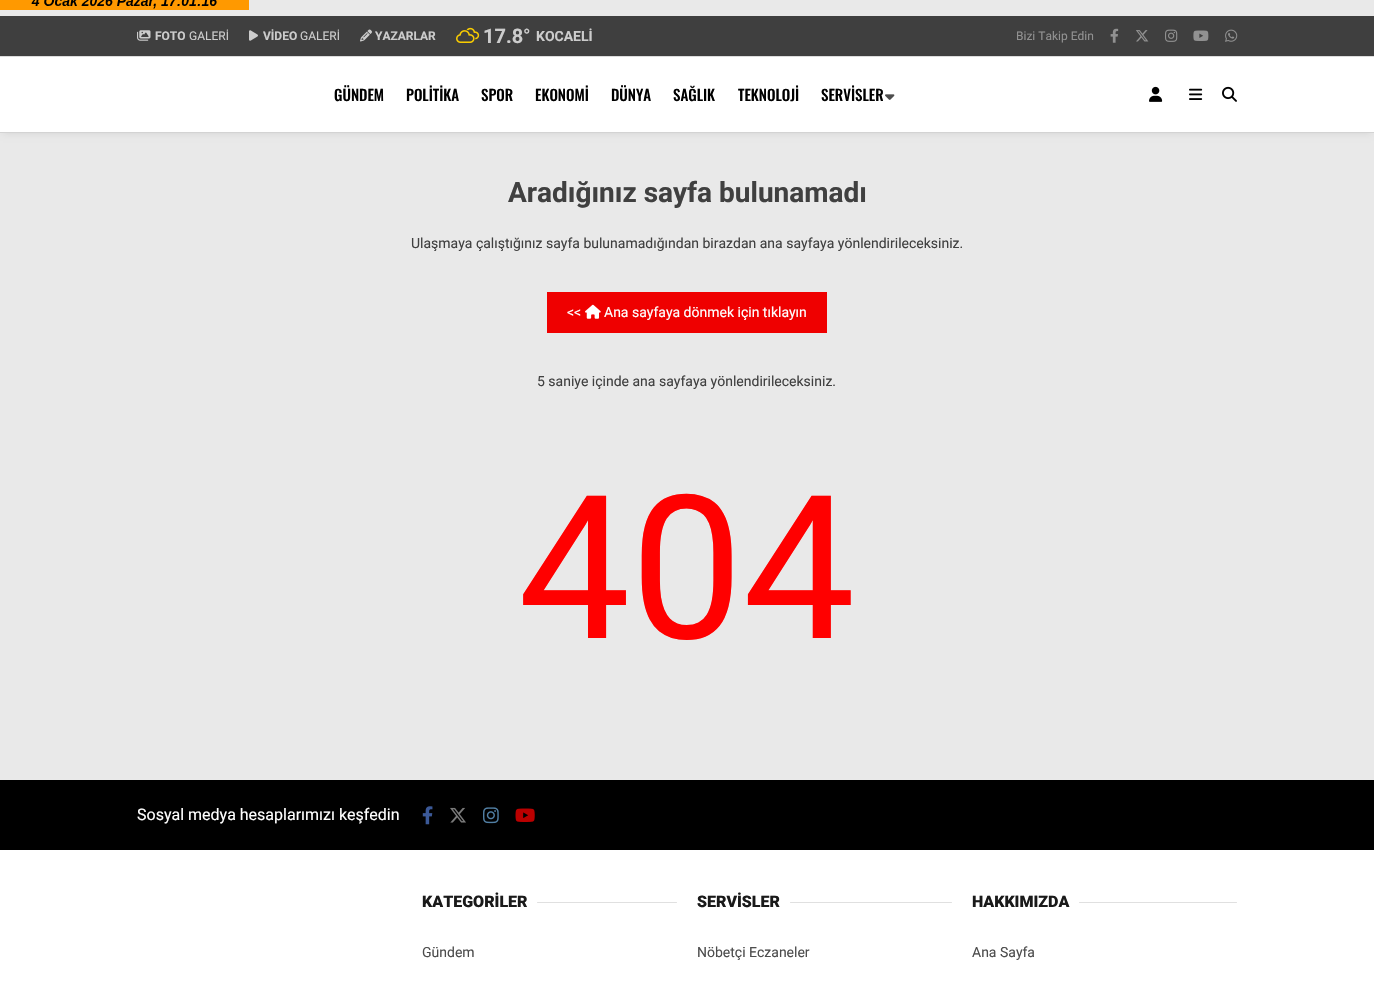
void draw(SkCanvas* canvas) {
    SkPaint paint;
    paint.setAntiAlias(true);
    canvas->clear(0xFFE9E9E9);
    canvas->drawImageRect(SkImages::DeferredFromEncodedData(SkData::MakeFromFileName("img1.png")), SkRect::MakeXYWH(0, 0, 249, 10), SkSamplingOptions());
    paint.setColor(0xFF3F3F3F);
    canvas->drawRect(SkRect::MakeXYWH(0, 16, 1374, 40), paint);
    paint.setColor(0xFFDDDDDD);
    canvas->drawRect(SkRect::MakeXYWH(0, 56, 1374, 1), paint);
    canvas->drawImageRect(SkImages::DeferredFromEncodedData(SkData::MakeFromFileName("img2.png")), SkRect::MakeXYWH(137, 30, 14, 11), SkSamplingOptions());
    SkFont font1(fontMgr->matchFamilyStyle("Roboto", SkFontStyle::Bold()), 12);
    font1.setSubpixel(true);
    paint.setColor(0xFFCCCCCC);
    canvas->drawString("FOTO", 155, 40, font1, paint);
    SkFont font2(fontMgr->matchFamilyStyle("Roboto", SkFontStyle::Normal()), 12);
    font2.setSubpixel(true);
    canvas->drawString("GALERİ", 189, 40, font2, paint);
    canvas->drawImageRect(SkImages::DeferredFromEncodedData(SkData::MakeFromFileName("img3.png")), SkRect::MakeXYWH(249, 30, 9, 11), SkSamplingOptions());
    canvas->drawString("VİDEO", 263, 40, font1, paint);
    canvas->drawString("GALERİ", 300, 40, font2, paint);
    canvas->drawImageRect(SkImages::DeferredFromEncodedData(SkData::MakeFromFileName("img4.png")), SkRect::MakeXYWH(360, 29, 12, 13), SkSamplingOptions());
    canvas->drawString("YAZARLAR", 375, 40, font1, paint);
    canvas->drawImageRect(SkImages::DeferredFromEncodedData(SkData::MakeFromFileName("img5.png")), SkRect::MakeXYWH(456, 27, 24, 16), SkSamplingOptions());
    SkFont font3(fontMgr->matchFamilyStyle("Roboto", SkFontStyle::Bold()), 20);
    font3.setSubpixel(true);
    canvas->drawString("17.8", 483, 43, font3, paint);
    SkFont font4(fontMgr->matchFamilyStyle("Roboto", SkFontStyle::Normal()), 20);
    font4.setSubpixel(true);
    canvas->drawString("°", 523, 43, font4, paint);
    SkFont font5(fontMgr->matchFamilyStyle("Roboto", SkFontStyle::Bold()), 14);
    font5.setSubpixel(true);
    canvas->drawString("KOCAELİ", 536, 41, font5, paint);
    paint.setColor(0xFF919191);
    canvas->drawString("Bizi Takip Edin", 1016, 40, font2, paint);
    canvas->drawImageRect(SkImages::DeferredFromEncodedData(SkData::MakeFromFileName("img6.png")), SkRect::MakeXYWH(1110, 28, 9, 15), SkSamplingOptions());
    canvas->drawImageRect(SkImages::DeferredFromEncodedData(SkData::MakeFromFileName("img7.png")), SkRect::MakeXYWH(1136, 30, 13, 12), SkSamplingOptions());
    canvas->drawImageRect(SkImages::DeferredFromEncodedData(SkData::MakeFromFileName("img8.png")), SkRect::MakeXYWH(1165, 29, 13, 13), SkSamplingOptions());
    canvas->drawImageRect(SkImages::DeferredFromEncodedData(SkData::MakeFromFileName("img9.png")), SkRect::MakeXYWH(1193, 30, 16, 11), SkSamplingOptions());
    canvas->drawImageRect(SkImages::DeferredFromEncodedData(SkData::MakeFromFileName("img10.png")), SkRect::MakeXYWH(1225, 29, 13, 13), SkSamplingOptions());
    paint.setColor(0x1A000000);
    paint.setMaskFilter(SkMaskFilter::MakeBlur(kNormal_SkBlurStyle, 3.5f));
    canvas->drawRect(SkRect::MakeXYWH(3, 63, 1368, 70), paint);
    paint.setMaskFilter(nullptr);
    paint.setColor(0xFFFFFFFF);
    canvas->drawRect(SkRect::MakeXYWH(0, 57, 1374, 75), paint);
    paint.setColor(0xFFD3D3D3);
    canvas->drawRect(SkRect::MakeXYWH(0, 132, 1374, 1), paint);
    SkFont font6(fontMgr->matchFamilyStyle("Oswald", SkFontStyle(500, SkFontStyle::kNormal_Width, SkFontStyle::kUpright_Slant)), 15);
    font6.setSubpixel(true);
    paint.setColor(0xFF000000);
    canvas->drawString("GÜNDEM", 334, 101, font6, paint);
    canvas->drawString("POLİTİKA", 406, 101, font6, paint);
    canvas->drawString("SPOR", 481, 101, font6, paint);
    canvas->drawString("EKONOMİ", 535, 101, font6, paint);
    canvas->drawString("DÜNYA", 611, 101, font6, paint);
    canvas->drawString("SAĞLIK", 673, 101, font6, paint);
    canvas->drawString("TEKNOLOJİ", 738, 101, font6, paint);
    canvas->drawString("SERVİSLER", 821, 101, font6, paint);
    canvas->drawImageRect(SkImages::DeferredFromEncodedData(SkData::MakeFromFileName("img11.png")), SkRect::MakeXYWH(885, 94, 10, 6), SkSamplingOptions());
    canvas->drawImageRect(SkImages::DeferredFromEncodedData(SkData::MakeFromFileName("img12.png")), SkRect::MakeXYWH(1149, 86, 14, 16), SkSamplingOptions());
    canvas->drawImageRect(SkImages::DeferredFromEncodedData(SkData::MakeFromFileName("img13.png")), SkRect::MakeXYWH(1189, 88, 14, 12), SkSamplingOptions());
    canvas->drawImageRect(SkImages::DeferredFromEncodedData(SkData::MakeFromFileName("img14.png")), SkRect::MakeXYWH(1222, 86, 15, 16), SkSamplingOptions());
    SkFont font7(fontMgr->matchFamilyStyle("Roboto", SkFontStyle::Bold()), 28);
    font7.setSubpixel(true);
    paint.setColor(0xFF404040);
    canvas->drawString("Aradığınız sayfa bulunamadı", 508, 202, font7, paint);
    SkFont font8(fontMgr->matchFamilyStyle("Roboto", SkFontStyle::Normal()), 14);
    font8.setSubpixel(true);
    canvas->drawString("Ulaşmaya çalıştığınız sayfa bulunamadığından birazdan ana sayfaya yönlendirileceksiniz.", 411, 248, font8, paint);
    paint.setColor(0xFFEF0000);
    canvas->drawRect(SkRect::MakeXYWH(547, 292, 280, 41), paint);
    paint.setColor(0xFFFFFFFF);
    canvas->drawString("<<", 567, 317, font8, paint);
    canvas->drawImageRect(SkImages::DeferredFromEncodedData(SkData::MakeFromFileName("img15.png")), SkRect::MakeXYWH(585, 304, 16, 15), SkSamplingOptions());
    canvas->drawString("Ana sayfaya dönmek için tıklayın", 604, 317, font8, paint);
    paint.setColor(0xFF404040);
    canvas->drawString("5 saniye içinde ana sayfaya yönlendirileceksiniz.", 537, 386, font8, paint);
    SkFont font9(fontMgr->matchFamilyStyle("Roboto", SkFontStyle::Normal()), 200);
    font9.setSubpixel(true);
    paint.setColor(0xFFFF0000);
    canvas->drawString("404", 518, 638, font9, paint);
    paint.setColor(0xFF000000);
    canvas->drawRect(SkRect::MakeXYWH(0, 780, 1374, 70), paint);
    SkFont font10(fontMgr->matchFamilyStyle("Roboto", SkFontStyle::Normal()), 16);
    font10.setSubpixel(true);
    paint.setColor(0xFFFFFFFF);
    canvas->drawString("Sosyal medya hesaplarımızı keşfedin", 137, 820, font10, paint);
    canvas->drawImageRect(SkImages::DeferredFromEncodedData(SkData::MakeFromFileName("img16.png")), SkRect::MakeXYWH(422, 806, 11, 19), SkSamplingOptions());
    canvas->drawImageRect(SkImages::DeferredFromEncodedData(SkData::MakeFromFileName("img17.png")), SkRect::MakeXYWH(450, 807, 16, 16), SkSamplingOptions());
    canvas->drawImageRect(SkImages::DeferredFromEncodedData(SkData::MakeFromFileName("img18.png")), SkRect::MakeXYWH(483, 807, 16, 17), SkSamplingOptions());
    canvas->drawImageRect(SkImages::DeferredFromEncodedData(SkData::MakeFromFileName("img19.png")), SkRect::MakeXYWH(515, 808, 20, 14), SkSamplingOptions());
    canvas->drawRect(SkRect::MakeXYWH(0, 850, 1374, 135), paint);
    SkFont font11(fontMgr->matchFamilyStyle("Roboto", SkFontStyle(900, SkFontStyle::kNormal_Width, SkFontStyle::kUpright_Slant)), 16);
    font11.setSubpixel(true);
    paint.setColor(0xFF1A1A1A);
    canvas->drawString("KATEGORİLER", 422, 907, font11, paint);
    paint.setColor(0xFFE0E0E0);
    canvas->drawRoundRect(SkRect::MakeXYWH(537, 902, 140, 1), 0.5f, 0.5f, paint);
    paint.setColor(0xFF4D4D4D);
    canvas->drawString("Gündem", 422, 957, font8, paint);
    paint.setColor(0xFF1A1A1A);
    canvas->drawString("SERVİSLER", 697, 907, font11, paint);
    paint.setColor(0xFFE0E0E0);
    canvas->drawRoundRect(SkRect::MakeXYWH(790, 902, 162, 1), 0.5f, 0.5f, paint);
    paint.setColor(0xFF4D4D4D);
    canvas->drawString("Nöbetçi Eczaneler", 697, 957, font8, paint);
    paint.setColor(0xFF1A1A1A);
    canvas->drawString("HAKKIMIZDA", 972, 907, font11, paint);
    paint.setColor(0xFFE0E0E0);
    canvas->drawRoundRect(SkRect::MakeXYWH(1079, 902, 158, 1), 0.5f, 0.5f, paint);
    paint.setColor(0xFF4D4D4D);
    canvas->drawString("Ana Sayfa", 972, 957, font8, paint);
}
